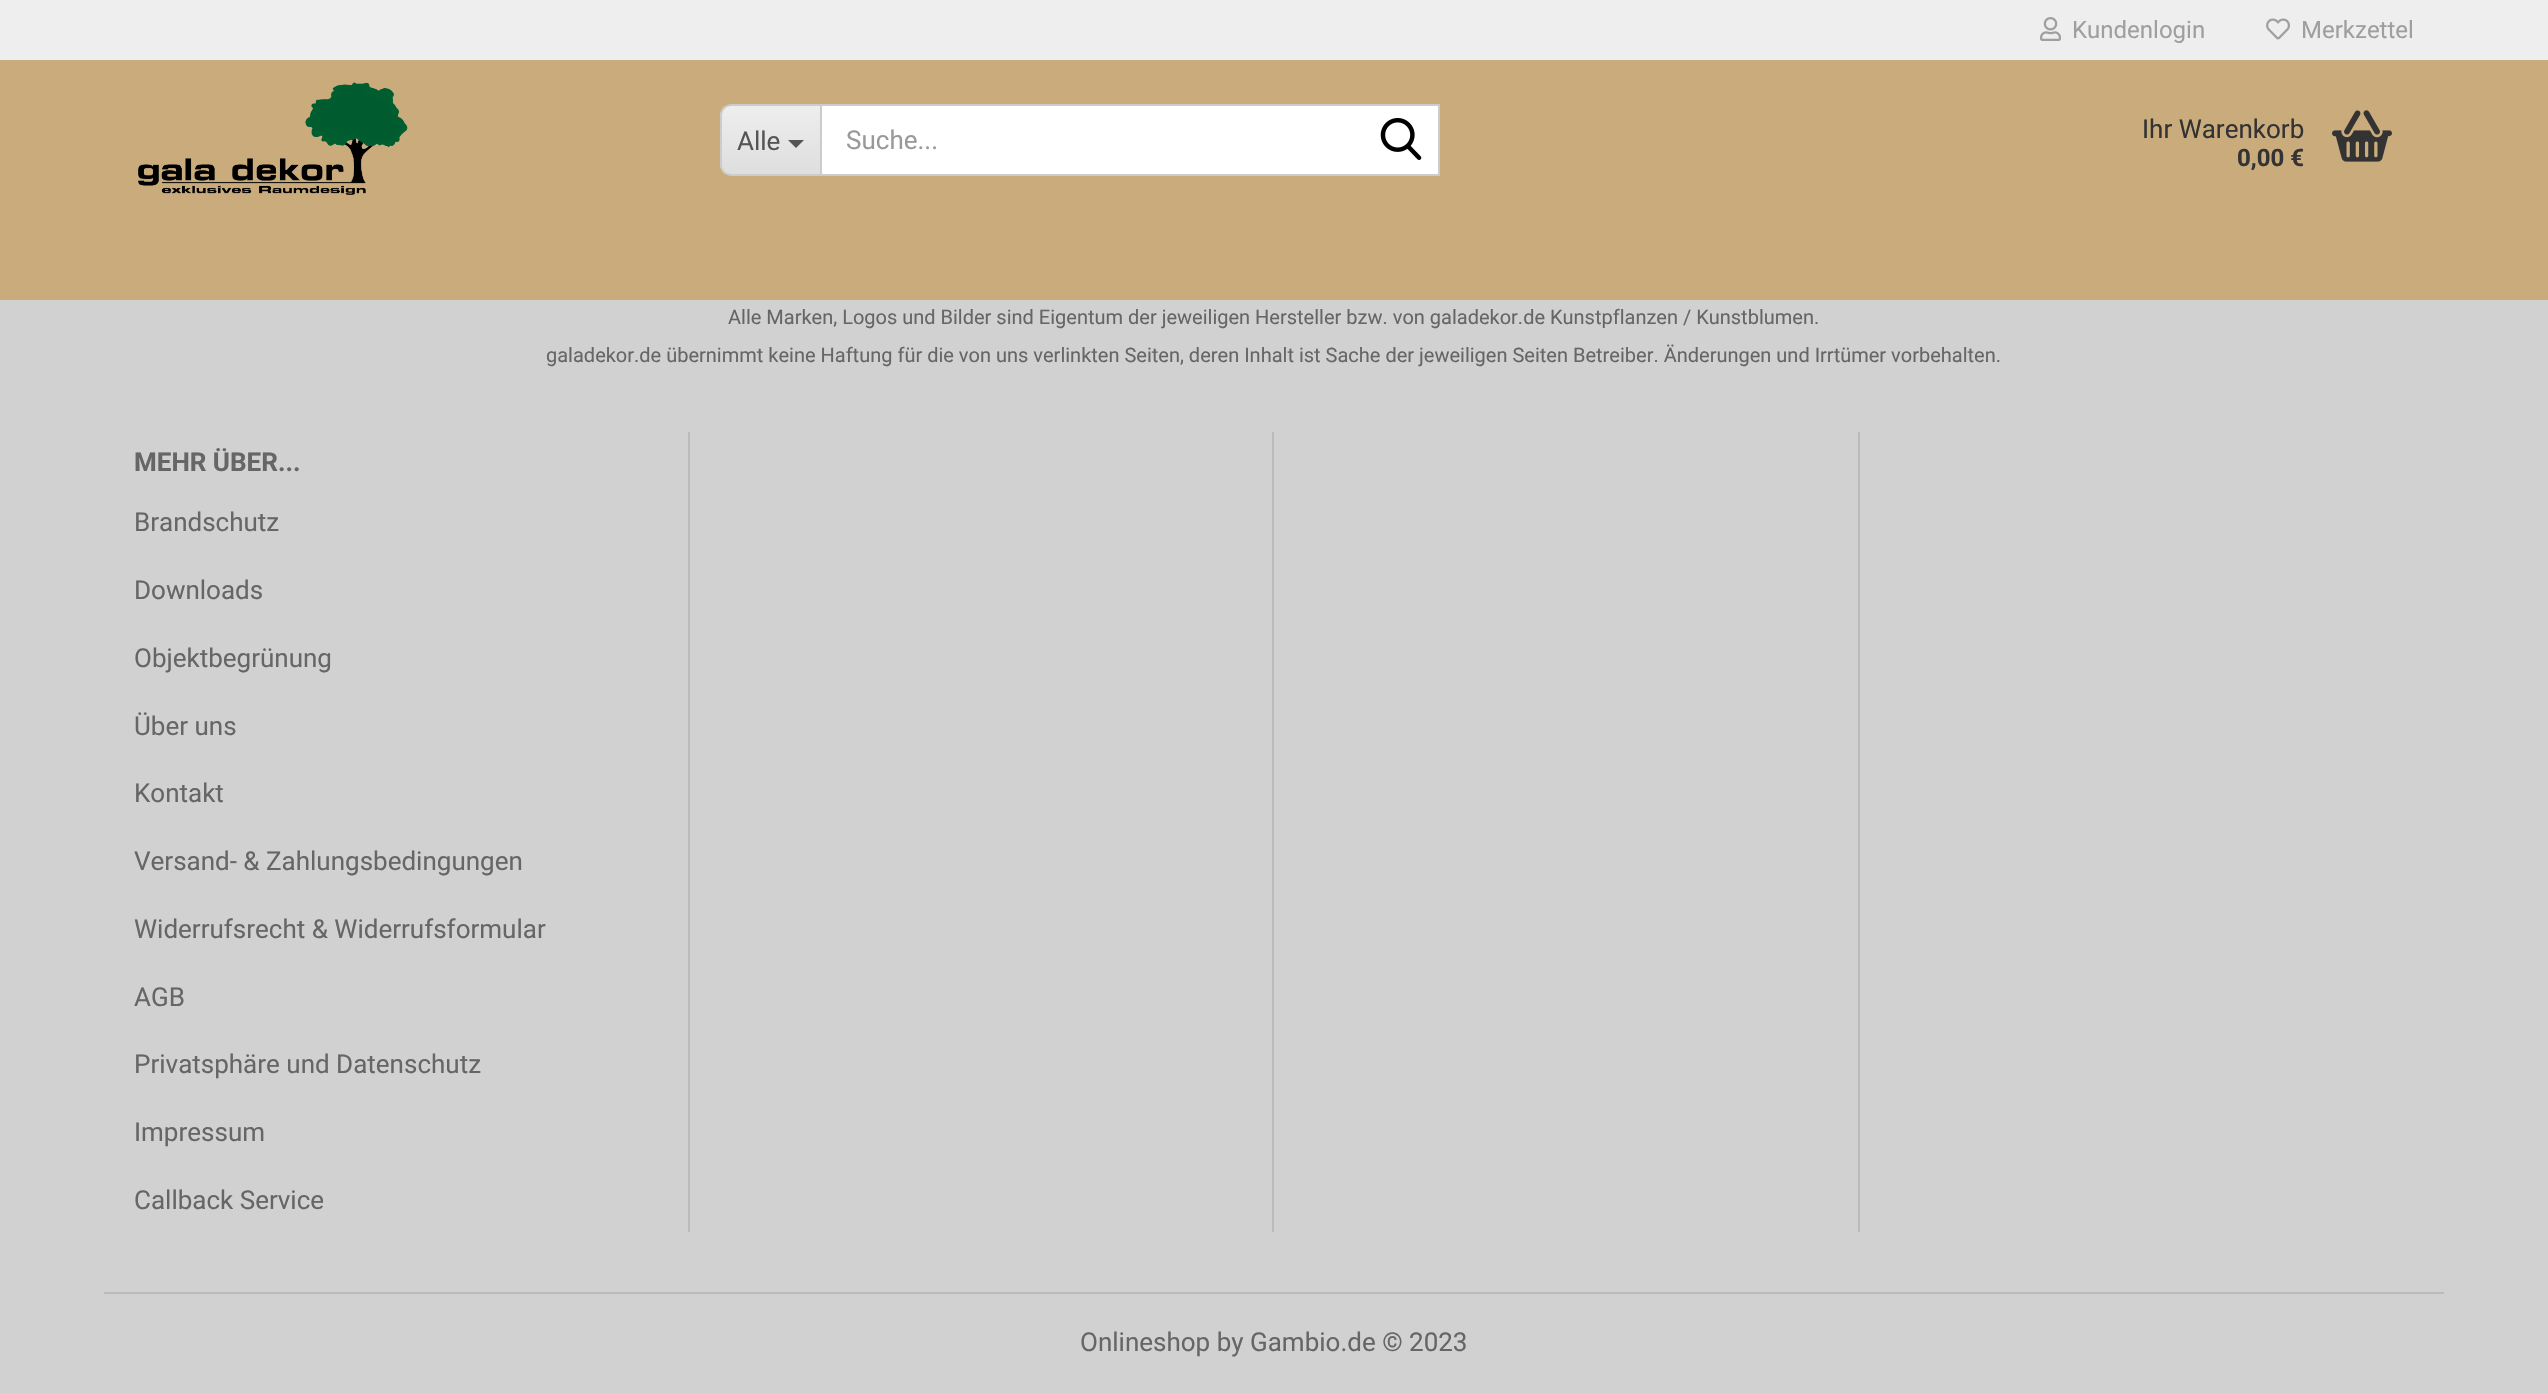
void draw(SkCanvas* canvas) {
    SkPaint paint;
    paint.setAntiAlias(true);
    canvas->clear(0xFFD1D1D1);
    paint.setColor(0xFFC9AB7C);
    canvas->drawRect(SkRect::MakeXYWH(0, 60, 2548, 240), paint);
    paint.setColor(0xFFEEEEEE);
    canvas->drawRect(SkRect::MakeXYWH(0, 0, 2548, 60), paint);
    canvas->drawImageRect(SkImages::DeferredFromEncodedData(SkData::MakeFromFileName("img1.png")), SkRect::MakeXYWH(2040, 17, 21, 24), SkSamplingOptions());
    SkFont font1(fontMgr->matchFamilyStyle("Roboto", SkFontStyle::Normal()), 24);
    font1.setSubpixel(true);
    paint.setColor(0xFF9F9F9F);
    canvas->drawString("Kundenlogin", 2072, 38, font1, paint);
    canvas->drawImageRect(SkImages::DeferredFromEncodedData(SkData::MakeFromFileName("img2.png")), SkRect::MakeXYWH(2266, 18, 24, 22), SkSamplingOptions());
    canvas->drawString("Merkzettel", 2301, 38, font1, paint);
    canvas->drawImageRect(SkImages::DeferredFromEncodedData(SkData::MakeFromFileName("img3.png")), SkRect::MakeXYWH(138, 82, 270, 113), SkSamplingOptions());
    canvas->save();
    canvas->clipPath(SkPathBuilder().moveTo(732, 104).lineTo(820, 104).lineTo(820, 176).lineTo(732, 176).cubicTo(725.5f, 176, 720, 170.5f, 720, 164).lineTo(720, 116).cubicTo(720, 109.5f, 725.5f, 104, 732, 104).close().detach(), true);
    {
        const SkColor colors[] = {0xFFEEEEEE, 0xFFDEDEDE};
        const float stops[] = {0, 1};
        const SkPoint ends[] = {{771, 106}, {771, 174}};
        paint.setShader(SkGradientShader::MakeLinear(ends, colors, stops, 2, SkTileMode::kClamp));
        paint.setAlpha(255);
    }
    canvas->drawRect(SkRect::MakeXYWH(720, 106, 100, 68), paint);
    canvas->restore();
    paint.setShader(nullptr);
    paint.setColor(0xFFCCCCCC);
    canvas->drawPath(SkPathBuilder(SkPathFillType::kEvenOdd).moveTo(732, 104).lineTo(820, 104).lineTo(820, 176).lineTo(732, 176).cubicTo(725, 176, 720, 171, 720, 164).lineTo(720, 116).cubicTo(720, 109, 725, 104, 732, 104).close().moveTo(732, 106).lineTo(820, 106).lineTo(820, 174).lineTo(732, 174).cubicTo(726, 174, 722, 170, 722, 164).lineTo(722, 116).cubicTo(722, 110, 726, 106, 732, 106).close().detach(), paint);
    SkFont font2(fontMgr->matchFamilyStyle("Roboto", SkFontStyle::Normal()), 26);
    font2.setSubpixel(true);
    paint.setColor(0xFF555555);
    canvas->drawString("Alle", 737, 150, font2, paint);
    canvas->drawPath(SkPathBuilder().moveTo(788, 140).lineTo(804, 140).lineTo(796, 148).close().detach(), paint);
    paint.setColor(0xFFFFFFFF);
    canvas->drawRect(SkRect::MakeXYWH(821, 105, 618, 70), paint);
    paint.setStyle(SkPaint::kStroke_Style);
    paint.setStrokeWidth(2);
    paint.setColor(0xFFCCCCCC);
    canvas->drawRect(SkRect::MakeXYWH(821, 105, 618, 70), paint);
    paint.setStyle(SkPaint::kFill_Style);
    paint.setColor(0xFF999999);
    canvas->drawString("Suche...", 846, 149, font2, paint);
    canvas->drawImageRect(SkImages::DeferredFromEncodedData(SkData::MakeFromFileName("img4.png")), SkRect::MakeXYWH(1380, 118, 42, 42), SkSamplingOptions());
    paint.setColor(0xFF333333);
    canvas->drawString("Ihr Warenkorb", 2142, 138, font2, paint);
    SkFont font3(fontMgr->matchFamilyStyle("Roboto", SkFontStyle::Bold()), 24);
    font3.setSubpixel(true);
    canvas->drawString("0,00 €", 2237, 166, font3, paint);
    canvas->drawImageRect(SkImages::DeferredFromEncodedData(SkData::MakeFromFileName("img5.png")), SkRect::MakeXYWH(2332, 110, 60, 52), SkSamplingOptions());
    SkFont font4(fontMgr->matchFamilyStyle("Roboto", SkFontStyle::Normal()), 20);
    font4.setSubpixel(true);
    paint.setColor(0xFF666666);
    canvas->drawString("Alle Marken, Logos und Bilder sind Eigentum der jeweiligen Hersteller bzw. von galadekor.de Kunstpflanzen / Kunstblumen.", 728, 324, font4, paint);
    canvas->drawString("galadekor.de übernimmt keine Haftung für die von uns verlinkten Seiten, deren Inhalt ist Sache der jeweiligen Seiten Betreiber. Änderungen und Irrtümer vorbehalten.", 546, 362, font4, paint);
    paint.setColor(0xFFBBBBBB);
    canvas->drawRect(SkRect::MakeXYWH(104, 1292, 2340, 2), paint);
    canvas->drawRect(SkRect::MakeXYWH(688, 432, 2, 800), paint);
    SkFont font5(fontMgr->matchFamilyStyle("Roboto", SkFontStyle::Bold()), 26);
    font5.setSubpixel(true);
    paint.setColor(0xFF666666);
    canvas->drawString("MEHR ÜBER...", 134, 471, font5, paint);
    canvas->drawString("Brandschutz", 134, 531, font2, paint);
    canvas->drawString("Downloads", 134, 599, font2, paint);
    canvas->drawString("Objektbegrünung", 134, 667, font2, paint);
    canvas->drawString("Über uns", 134, 735, font2, paint);
    canvas->drawString("Kontakt", 134, 802, font2, paint);
    canvas->drawString("Versand- & Zahlungsbedingungen", 134, 870, font2, paint);
    canvas->drawString("Widerrufsrecht & Widerrufsformular", 134, 938, font2, paint);
    canvas->drawString("AGB", 134, 1006, font2, paint);
    canvas->drawString("Privatsphäre und Datenschutz", 134, 1073, font2, paint);
    canvas->drawString("Impressum", 134, 1141, font2, paint);
    canvas->drawString("Callback Service", 134, 1209, font2, paint);
    paint.setColor(0xFFBBBBBB);
    canvas->drawRect(SkRect::MakeXYWH(1272, 432, 2, 800), paint);
    canvas->drawRect(SkRect::MakeXYWH(1858, 432, 2, 800), paint);
    paint.setColor(0xFF666666);
    canvas->drawString("Onlineshop by Gambio.de © 2023", 1080, 1351, font2, paint);
}
